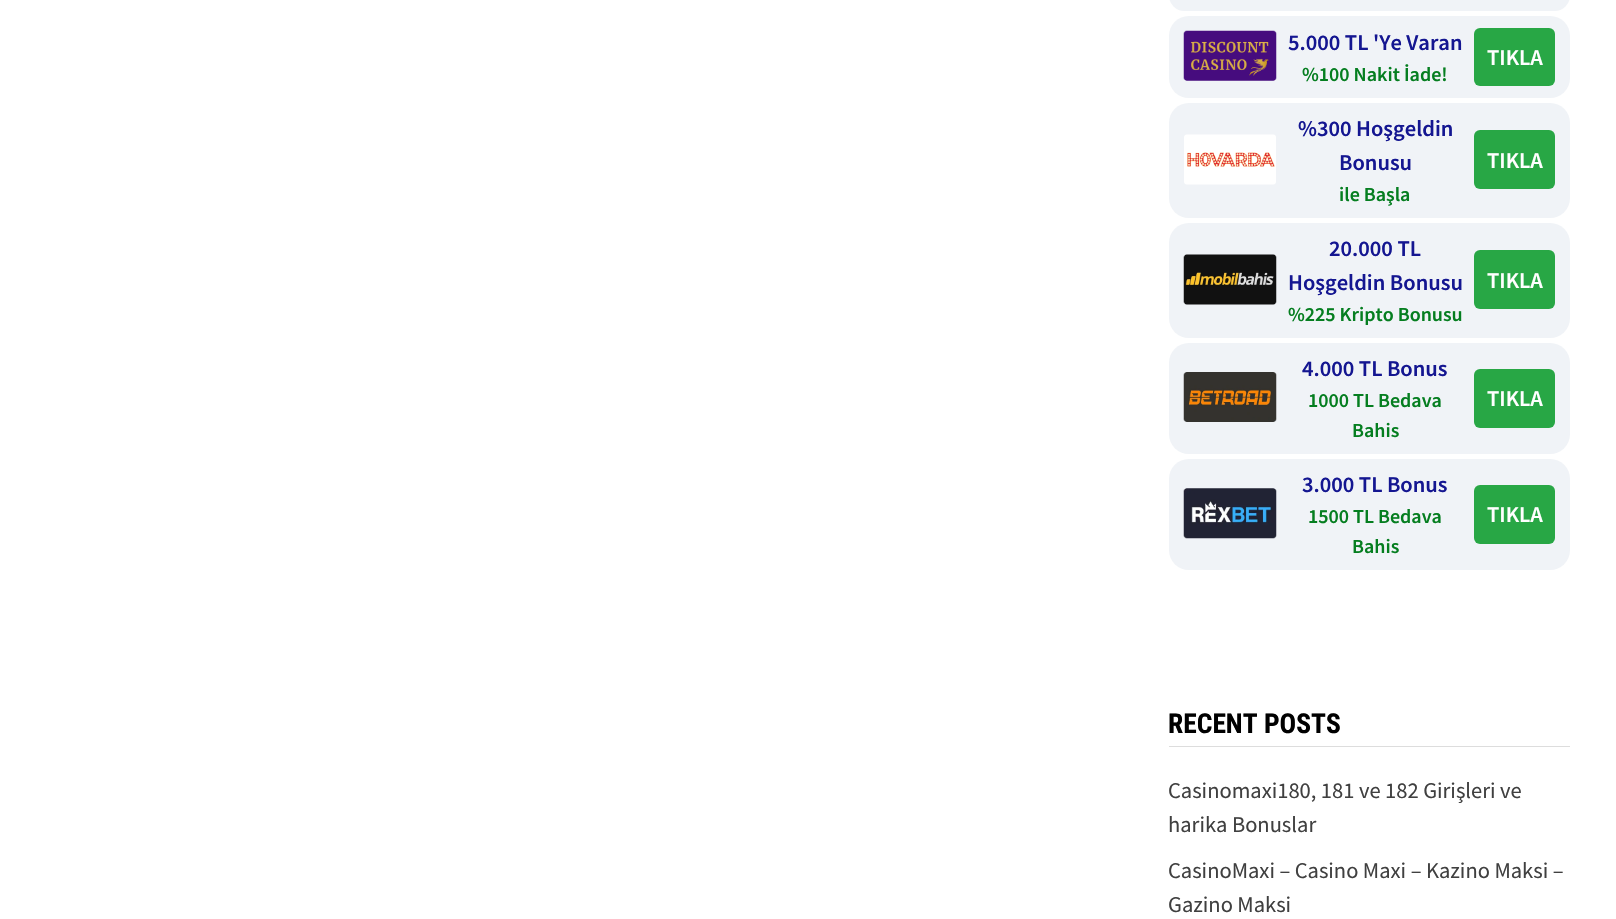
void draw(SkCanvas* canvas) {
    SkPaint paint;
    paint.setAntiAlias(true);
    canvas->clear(0xFFFFFFFF);
    paint.setColor(0xFFF0F3F7);
    canvas->drawRoundRect(SkRect::MakeXYWH(1169, -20, 401, 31), 20, 20, paint);
    canvas->drawRoundRect(SkRect::MakeXYWH(1169, 16, 401, 82), 20, 20, paint);
    canvas->drawImageRect(SkImages::DeferredFromEncodedData(SkData::MakeFromFileName("img1.png")), SkRect::MakeXYWH(1183, 30, 94, 51), SkSamplingOptions());
    SkFont font1(fontMgr->matchFamilyStyle("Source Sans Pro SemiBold", SkFontStyle(600, SkFontStyle::kNormal_Width, SkFontStyle::kUpright_Slant)), 22.5f);
    font1.setSubpixel(true);
    paint.setColor(0xFF141691);
    canvas->drawString("5.000 TL 'Ye Varan", 1288, 50, font1, paint);
    SkFont font2(fontMgr->matchFamilyStyle("Source Sans Pro SemiBold", SkFontStyle(600, SkFontStyle::kNormal_Width, SkFontStyle::kUpright_Slant)), 20);
    font2.setSubpixel(true);
    paint.setColor(0xFF057E20);
    canvas->drawString("%100 Nakit İade!", 1302, 81, font2, paint);
    paint.setColor(0xFF28A745);
    canvas->drawRoundRect(SkRect::MakeXYWH(1474, 28, 81, 58), 6, 6, paint);
    paint.setColor(0xFFFFFFFF);
    canvas->drawString("TIKLA", 1487, 65, font1, paint);
    paint.setColor(0xFFF0F3F7);
    canvas->drawRoundRect(SkRect::MakeXYWH(1169, 103, 401, 115), 20, 20, paint);
    canvas->drawImageRect(SkImages::DeferredFromEncodedData(SkData::MakeFromFileName("img2.png")), SkRect::MakeXYWH(1184, 134, 92, 51), SkSamplingOptions());
    paint.setColor(0xFF141691);
    canvas->drawString("%300 Hoşgeldin", 1298, 136, font1, paint);
    canvas->drawString("Bonusu", 1339, 170, font1, paint);
    paint.setColor(0xFF057E20);
    canvas->drawString("ile Başla", 1339, 201, font2, paint);
    paint.setColor(0xFF28A745);
    canvas->drawRoundRect(SkRect::MakeXYWH(1474, 130, 81, 59), 6, 6, paint);
    paint.setColor(0xFFFFFFFF);
    canvas->drawString("TIKLA", 1487, 168, font1, paint);
    paint.setColor(0xFFF0F3F7);
    canvas->drawRoundRect(SkRect::MakeXYWH(1169, 223, 401, 115), 20, 20, paint);
    canvas->drawImageRect(SkImages::DeferredFromEncodedData(SkData::MakeFromFileName("img3.png")), SkRect::MakeXYWH(1183, 254, 94, 51), SkSamplingOptions());
    paint.setColor(0xFF141691);
    canvas->drawString("20.000 TL", 1329, 256, font1, paint);
    canvas->drawString("Hoşgeldin Bonusu", 1288, 290, font1, paint);
    paint.setColor(0xFF057E20);
    canvas->drawString("%225 Kripto Bonusu", 1288, 321, font2, paint);
    paint.setColor(0xFF28A745);
    canvas->drawRoundRect(SkRect::MakeXYWH(1474, 250, 81, 59), 6, 6, paint);
    paint.setColor(0xFFFFFFFF);
    canvas->drawString("TIKLA", 1487, 288, font1, paint);
    paint.setColor(0xFFF0F3F7);
    canvas->drawRoundRect(SkRect::MakeXYWH(1169, 343, 401, 111), 20, 20, paint);
    canvas->drawImageRect(SkImages::DeferredFromEncodedData(SkData::MakeFromFileName("img4.png")), SkRect::MakeXYWH(1183, 372, 94, 50), SkSamplingOptions());
    paint.setColor(0xFF141691);
    canvas->drawString("4.000 TL Bonus", 1302, 376, font1, paint);
    paint.setColor(0xFF057E20);
    canvas->drawString("1000 TL Bedava", 1308, 407, font2, paint);
    canvas->drawString("Bahis", 1352, 437, font2, paint);
    paint.setColor(0xFF28A745);
    canvas->drawRoundRect(SkRect::MakeXYWH(1474, 369, 81, 59), 6, 6, paint);
    paint.setColor(0xFFFFFFFF);
    canvas->drawString("TIKLA", 1487, 406, font1, paint);
    paint.setColor(0xFFF0F3F7);
    canvas->drawRoundRect(SkRect::MakeXYWH(1169, 459, 401, 111), 20, 20, paint);
    canvas->drawImageRect(SkImages::DeferredFromEncodedData(SkData::MakeFromFileName("img5.png")), SkRect::MakeXYWH(1183, 488, 94, 51), SkSamplingOptions());
    paint.setColor(0xFF141691);
    canvas->drawString("3.000 TL Bonus", 1302, 492, font1, paint);
    paint.setColor(0xFF057E20);
    canvas->drawString("1500 TL Bedava", 1308, 523, font2, paint);
    canvas->drawString("Bahis", 1352, 553, font2, paint);
    paint.setColor(0xFF28A745);
    canvas->drawRoundRect(SkRect::MakeXYWH(1474, 485, 81, 59), 6, 6, paint);
    paint.setColor(0xFFFFFFFF);
    canvas->drawString("TIKLA", 1487, 522, font1, paint);
    paint.setColor(0xFFDDDDDD);
    canvas->drawRect(SkRect::MakeXYWH(1169, 746, 401, 1), paint);
    SkFont font3(fontMgr->matchFamilyStyle("Roboto Condensed", SkFontStyle::Bold()), 27.5f);
    font3.setSubpixel(true);
    paint.setColor(0xFF000000);
    canvas->drawString("RECENT POSTS", 1168, 733, font3, paint);
    SkFont font4(fontMgr->matchFamilyStyle("Source Sans Pro", SkFontStyle::Normal()), 22.5f);
    font4.setSubpixel(true);
    paint.setColor(0xFF404040);
    canvas->drawString("Casinomaxi180, 181 ve 182 Girişleri ve", 1168, 798, font4, paint);
    canvas->drawString("harika Bonuslar", 1168, 832, font4, paint);
    canvas->drawString("CasinoMaxi – Casino Maxi – Kazino Maksi –", 1168, 878, font4, paint);
    canvas->drawString("Gazino Maksi", 1168, 912, font4, paint);
}
